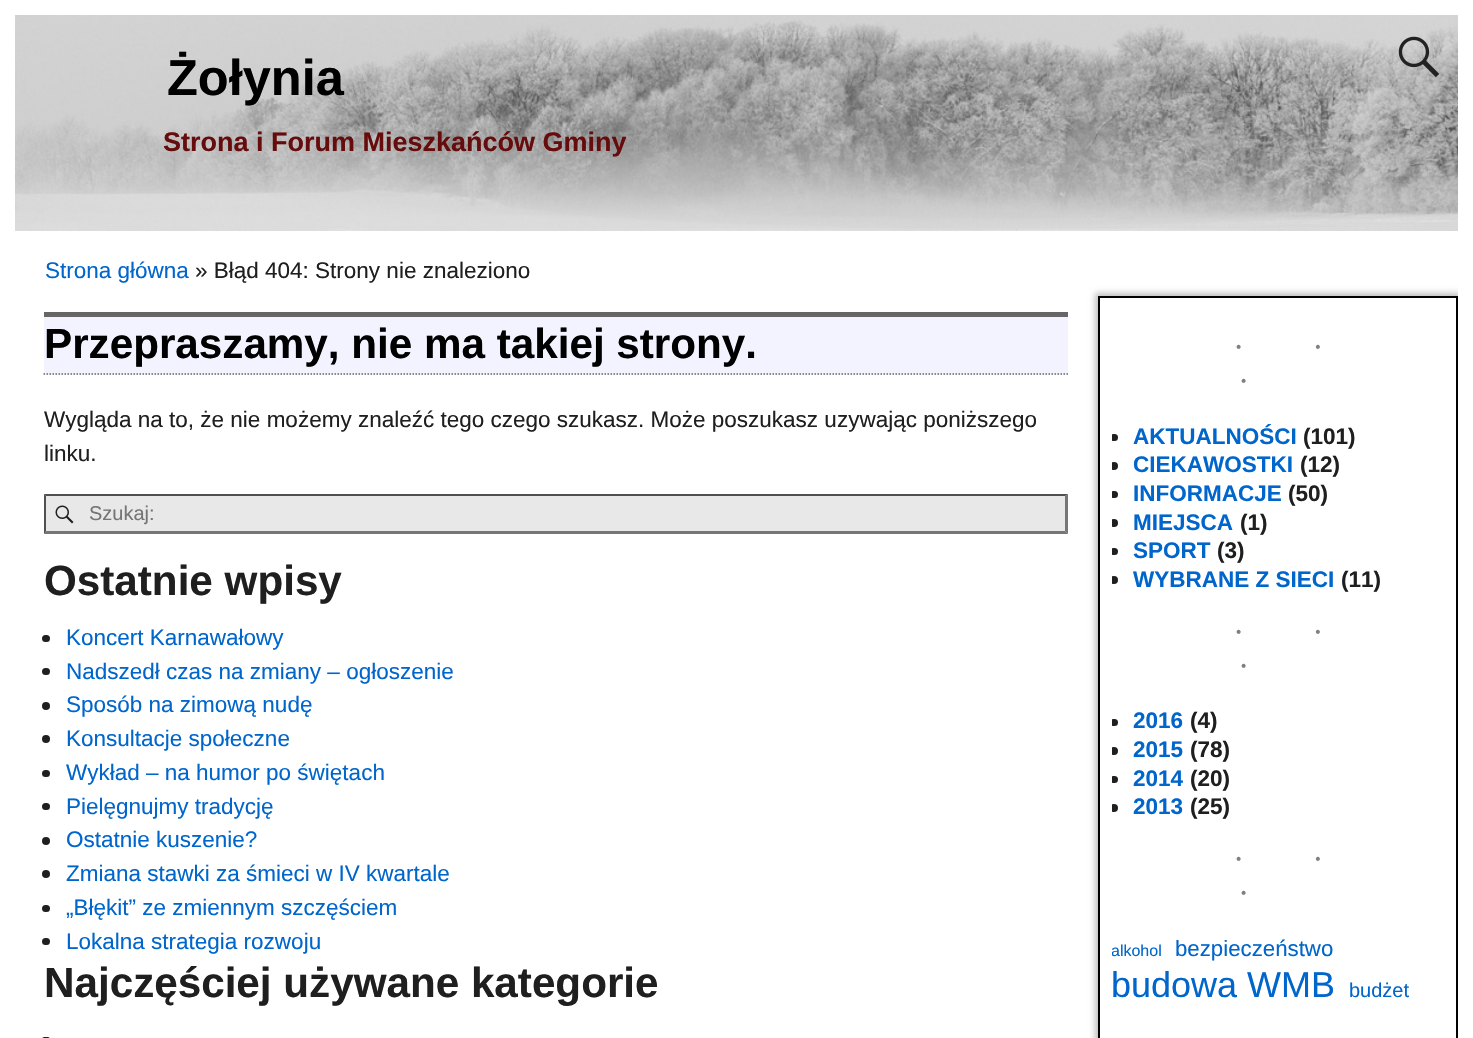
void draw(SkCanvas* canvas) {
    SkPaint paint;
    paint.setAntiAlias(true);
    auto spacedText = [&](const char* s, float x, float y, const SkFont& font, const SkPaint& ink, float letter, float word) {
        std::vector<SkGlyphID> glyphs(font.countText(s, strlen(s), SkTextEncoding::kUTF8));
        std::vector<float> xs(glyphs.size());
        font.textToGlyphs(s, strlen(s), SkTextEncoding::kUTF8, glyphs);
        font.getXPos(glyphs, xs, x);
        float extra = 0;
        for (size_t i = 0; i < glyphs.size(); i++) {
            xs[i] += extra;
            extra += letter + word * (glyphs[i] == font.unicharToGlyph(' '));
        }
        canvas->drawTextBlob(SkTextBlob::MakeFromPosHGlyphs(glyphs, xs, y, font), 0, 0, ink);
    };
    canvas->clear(0xFFFFFFFF);
    canvas->drawImageRect(SkImages::DeferredFromEncodedData(SkData::MakeFromFileName("img1.png")), SkRect::MakeXYWH(15, 15, 1443, 216), SkSamplingOptions());
    SkFont font1(fontMgr->matchFamilyStyle("Liberation Sans", SkFontStyle::Bold()), 50.5f);
    font1.setSubpixel(true);
    paint.setColor(0xFF000000);
    canvas->drawString("Żołynia", 167, 95, font1, paint);
    canvas->drawImageRect(SkImages::DeferredFromEncodedData(SkData::MakeFromFileName("img2.png")), SkRect::MakeXYWH(1398, 36, 42, 42), SkSamplingOptions());
    SkFont font2(fontMgr->matchFamilyStyle("Liberation Sans", SkFontStyle::Bold()), 27);
    font2.setSubpixel(true);
    paint.setColor(0xFF660C0C);
    canvas->drawString("Strona i Forum Mieszkańców Gminy", 163, 151, font2, paint);
    SkFont font3(fontMgr->matchFamilyStyle("Liberation Sans", SkFontStyle::Normal()), 22.5f);
    font3.setSubpixel(true);
    paint.setColor(0xFF0066CC);
    canvas->drawString("Strona główna", 45, 278, font3, paint);
    paint.setColor(0xFF1F1F1F);
    canvas->drawString("» Błąd 404: Strony nie znaleziono", 195, 278, font3, paint);
    paint.setColor(0xFFF3F3FF);
    canvas->drawRect(SkRect::MakeXYWH(44, 317, 1024, 58), paint);
    paint.setColor(0xFF666666);
    canvas->drawRect(SkRect::MakeXYWH(44, 312, 1024, 5), paint);
    paint.setStyle(SkPaint::kStroke_Style);
    paint.setStrokeWidth(1.5f);
    paint.setPathEffect(SkDashPathEffect::Make({{1.5f, 1.5f}}, 0));
    canvas->drawPath(SkPathBuilder().moveTo(43.5f, 374).lineTo(1068, 374).detach(), paint);
    paint.setPathEffect(nullptr);
    SkFont font4(fontMgr->matchFamilyStyle("Liberation Sans", SkFontStyle::Bold()), 42.2f);
    font4.setSubpixel(true);
    paint.setStyle(SkPaint::kFill_Style);
    paint.setColor(0xFF000000);
    canvas->drawString("Przepraszamy, nie ma takiej strony.", 44, 358, font4, paint);
    paint.setColor(0xFF1F1F1F);
    canvas->drawString("Wygląda na to, że nie możemy znaleźć tego czego szukasz. Może poszukasz uzywając poniższego", 44, 427, font3, paint);
    canvas->drawString("linku.", 44, 461, font3, paint);
    paint.setColor(0xFFE8E8E8);
    canvas->drawRect(SkRect::MakeXYWH(44, 494, 1024, 40), paint);
    canvas->drawImageRect(SkImages::DeferredFromEncodedData(SkData::MakeFromFileName("img3.png")), SkRect::MakeXYWH(55, 505, 19, 19), SkSamplingOptions());
    paint.setColor(0xFF4F4F4F);
    canvas->drawPath(SkPathBuilder().moveTo(44, 494).lineTo(1068, 494).lineTo(1065, 496).lineTo(46, 496).close().detach(), paint);
    paint.setColor(0xFF767676);
    canvas->drawPath(SkPathBuilder().moveTo(1068, 494).lineTo(1068, 534).lineTo(1065, 531).lineTo(1065, 496).close().detach(), paint);
    canvas->drawPath(SkPathBuilder().moveTo(1068, 534).lineTo(44, 534).lineTo(46, 531).lineTo(1065, 531).close().detach(), paint);
    paint.setColor(0xFF4F4F4F);
    canvas->drawPath(SkPathBuilder().moveTo(44, 534).lineTo(44, 494).lineTo(46, 496).lineTo(46, 531).close().detach(), paint);
    SkFont font5(fontMgr->matchFamilyStyle("Liberation Sans", SkFontStyle::Normal()), 20);
    font5.setSubpixel(true);
    paint.setColor(0xFF757575);
    canvas->drawString("Szukaj:", 89, 520, font5, paint);
    paint.setColor(0xFF1F1F1F);
    canvas->drawString("Ostatnie wpisy", 44, 595, font4, paint);
    canvas->drawRoundRect(SkRect::MakeXYWH(42, 635, 8, 7), 3.5f, 3.5f, paint);
    paint.setColor(0xFF0066CC);
    canvas->drawString("Koncert Karnawałowy", 66, 645, font3, paint);
    paint.setColor(0xFF1F1F1F);
    canvas->drawRoundRect(SkRect::MakeXYWH(42, 668, 8, 7), 3.5f, 3.5f, paint);
    paint.setColor(0xFF0066CC);
    canvas->drawString("Nadszedł czas na zmiany – ogłoszenie", 66, 679, font3, paint);
    paint.setColor(0xFF1F1F1F);
    canvas->drawCircle(46, 706, 4, paint);
    paint.setColor(0xFF0066CC);
    canvas->drawString("Sposób na zimową nudę", 66, 712, font3, paint);
    paint.setColor(0xFF1F1F1F);
    canvas->drawCircle(46, 739, 4, paint);
    paint.setColor(0xFF0066CC);
    canvas->drawString("Konsultacje społeczne", 66, 746, font3, paint);
    paint.setColor(0xFF1F1F1F);
    canvas->drawRoundRect(SkRect::MakeXYWH(42, 770, 8, 7), 3.5f, 3.5f, paint);
    paint.setColor(0xFF0066CC);
    canvas->drawString("Wykład – na humor po świętach", 66, 780, font3, paint);
    paint.setColor(0xFF1F1F1F);
    canvas->drawRoundRect(SkRect::MakeXYWH(42, 803, 8, 7), 3.5f, 3.5f, paint);
    paint.setColor(0xFF0066CC);
    canvas->drawString("Pielęgnujmy tradycję", 66, 814, font3, paint);
    paint.setColor(0xFF1F1F1F);
    canvas->drawCircle(46, 841, 4, paint);
    paint.setColor(0xFF0066CC);
    canvas->drawString("Ostatnie kuszenie?", 66, 847, font3, paint);
    paint.setColor(0xFF1F1F1F);
    canvas->drawCircle(46, 874, 4, paint);
    paint.setColor(0xFF0066CC);
    canvas->drawString("Zmiana stawki za śmieci w IV kwartale", 66, 881, font3, paint);
    paint.setColor(0xFF1F1F1F);
    canvas->drawRoundRect(SkRect::MakeXYWH(42, 905, 8, 7), 3.5f, 3.5f, paint);
    paint.setColor(0xFF0066CC);
    canvas->drawString("„Błękit” ze zmiennym szczęściem", 66, 915, font3, paint);
    paint.setColor(0xFF1F1F1F);
    canvas->drawRoundRect(SkRect::MakeXYWH(42, 938, 8, 7), 3.5f, 3.5f, paint);
    paint.setColor(0xFF0066CC);
    canvas->drawString("Lokalna strategia rozwoju", 66, 949, font3, paint);
    paint.setColor(0xFF1F1F1F);
    canvas->drawString("Najczęściej używane kategorie", 44, 997, font4, paint);
    canvas->drawRoundRect(SkRect::MakeXYWH(42, 1037, 8, 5), 3.5f, 3.5f, paint);
    canvas->save();
    canvas->clipRect(SkRect::MakeXYWH(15, 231, 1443, 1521));
    canvas->clipPath(SkPathBuilder(SkPathFillType::kEvenOdd).moveTo(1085, 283).lineTo(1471, 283).lineTo(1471, 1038).lineTo(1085, 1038).close().moveTo(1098, 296).lineTo(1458, 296).lineTo(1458, 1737).lineTo(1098, 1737).close().detach(), true);
    paint.setColor(0x40000000);
    paint.setMaskFilter(SkMaskFilter::MakeBlur(kNormal_SkBlurStyle, 3));
    canvas->drawRect(SkRect::MakeXYWH(1095, 293, 366, 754), paint);
    paint.setMaskFilter(nullptr);
    canvas->restore();
    paint.setStyle(SkPaint::kStroke_Style);
    paint.setStrokeWidth(2);
    paint.setColor(0xFF000000);
    canvas->drawRect(SkRect::MakeXYWH(1099, 297, 358, 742), paint);
    SkFont font6(fontMgr->matchFamilyStyle("Liberation Serif", SkFontStyle::Normal()), 33.75f);
    font6.setSubpixel(true);
    paint.setStyle(SkPaint::kFill_Style);
    paint.setColor(0xFF808080);
    spacedText("··", 1233, 358, font6, paint, 68, 0);
    spacedText("·", 1238, 392, font6, paint, 68, 0);
    canvas->save();
    canvas->clipRect(SkRect::MakeXYWH(1112, 422, 333, 172));
    paint.setColor(0xFF1F1F1F);
    canvas->drawRoundRect(SkRect::MakeXYWH(1110, 434, 8, 7), 3.5f, 3.5f, paint);
    canvas->restore();
    SkFont font7(fontMgr->matchFamilyStyle("Liberation Sans", SkFontStyle::Bold()), 22.5f);
    font7.setSubpixel(true);
    paint.setColor(0xFF0066CC);
    canvas->drawString("AKTUALNOŚCI", 1133, 444, font7, paint);
    paint.setColor(0xFF1F1F1F);
    canvas->drawString("(101)", 1303, 444, font7, paint);
    canvas->save();
    canvas->clipRect(SkRect::MakeXYWH(1112, 422, 333, 172));
    canvas->drawCircle(1114, 466, 4, paint);
    canvas->restore();
    paint.setColor(0xFF0066CC);
    canvas->drawString("CIEKAWOSTKI", 1133, 472, font7, paint);
    paint.setColor(0xFF1F1F1F);
    canvas->drawString("(12)", 1300, 472, font7, paint);
    canvas->save();
    canvas->clipRect(SkRect::MakeXYWH(1112, 422, 333, 172));
    canvas->drawRoundRect(SkRect::MakeXYWH(1110, 491, 8, 7), 3.5f, 3.5f, paint);
    canvas->restore();
    paint.setColor(0xFF0066CC);
    canvas->drawString("INFORMACJE", 1133, 501, font7, paint);
    paint.setColor(0xFF1F1F1F);
    canvas->drawString("(50)", 1288, 501, font7, paint);
    canvas->save();
    canvas->clipRect(SkRect::MakeXYWH(1112, 422, 333, 172));
    canvas->drawCircle(1114, 523, 4, paint);
    canvas->restore();
    paint.setColor(0xFF0066CC);
    canvas->drawString("MIEJSCA", 1133, 530, font7, paint);
    paint.setColor(0xFF1F1F1F);
    canvas->drawString("(1)", 1240, 530, font7, paint);
    canvas->save();
    canvas->clipRect(SkRect::MakeXYWH(1112, 422, 333, 172));
    canvas->drawRoundRect(SkRect::MakeXYWH(1110, 548, 8, 7), 3.5f, 3.5f, paint);
    canvas->restore();
    paint.setColor(0xFF0066CC);
    canvas->drawString("SPORT", 1133, 558, font7, paint);
    paint.setColor(0xFF1F1F1F);
    canvas->drawString("(3)", 1217, 558, font7, paint);
    canvas->save();
    canvas->clipRect(SkRect::MakeXYWH(1112, 422, 333, 172));
    canvas->drawCircle(1114, 580, 4, paint);
    canvas->restore();
    paint.setColor(0xFF0066CC);
    canvas->drawString("WYBRANE Z SIECI", 1133, 587, font7, paint);
    paint.setColor(0xFF1F1F1F);
    canvas->drawString("(11)", 1341, 587, font7, paint);
    paint.setColor(0xFF808080);
    spacedText("··", 1233, 643, font6, paint, 68, 0);
    spacedText("·", 1238, 677, font6, paint, 68, 0);
    canvas->save();
    canvas->clipRect(SkRect::MakeXYWH(1112, 707, 333, 114));
    paint.setColor(0xFF1F1F1F);
    canvas->drawRoundRect(SkRect::MakeXYWH(1110, 719, 8, 7), 3.5f, 3.5f, paint);
    canvas->restore();
    paint.setColor(0xFF0066CC);
    canvas->drawString("2016", 1133, 728, font7, paint);
    paint.setColor(0xFF1F1F1F);
    canvas->drawString("(4)", 1190, 728, font7, paint);
    canvas->save();
    canvas->clipRect(SkRect::MakeXYWH(1112, 707, 333, 114));
    canvas->drawCircle(1114, 751, 4, paint);
    canvas->restore();
    paint.setColor(0xFF0066CC);
    canvas->drawString("2015", 1133, 757, font7, paint);
    paint.setColor(0xFF1F1F1F);
    canvas->drawString("(78)", 1190, 757, font7, paint);
    canvas->save();
    canvas->clipRect(SkRect::MakeXYWH(1112, 707, 333, 114));
    canvas->drawRoundRect(SkRect::MakeXYWH(1110, 776, 8, 7), 3.5f, 3.5f, paint);
    canvas->restore();
    paint.setColor(0xFF0066CC);
    canvas->drawString("2014", 1133, 786, font7, paint);
    paint.setColor(0xFF1F1F1F);
    canvas->drawString("(20)", 1190, 786, font7, paint);
    canvas->save();
    canvas->clipRect(SkRect::MakeXYWH(1112, 707, 333, 114));
    canvas->drawCircle(1114, 808, 4, paint);
    canvas->restore();
    paint.setColor(0xFF0066CC);
    canvas->drawString("2013", 1133, 814, font7, paint);
    paint.setColor(0xFF1F1F1F);
    canvas->drawString("(25)", 1190, 814, font7, paint);
    paint.setColor(0xFF808080);
    spacedText("··", 1233, 870, font6, paint, 68, 0);
    spacedText("·", 1238, 904, font6, paint, 68, 0);
    canvas->save();
    canvas->clipRect(SkRect::MakeXYWH(1112, 933, 333, 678));
    SkFont font8(fontMgr->matchFamilyStyle("Liberation Sans", SkFontStyle::Normal()), 16);
    font8.setSubpixel(true);
    paint.setColor(0xFF0066CC);
    canvas->drawString("alkohol", 1111, 956, font8, paint);
    canvas->restore();
    SkFont font9(fontMgr->matchFamilyStyle("Liberation Sans", SkFontStyle::Normal()), 22.25f);
    font9.setSubpixel(true);
    canvas->drawString("bezpieczeństwo", 1175, 956, font9, paint);
    SkFont font10(fontMgr->matchFamilyStyle("Liberation Sans", SkFontStyle::Normal()), 36);
    font10.setSubpixel(true);
    canvas->drawString("budowa WMB", 1111, 997, font10, paint);
    canvas->drawString("budżet", 1349, 997, font5, paint);
}
